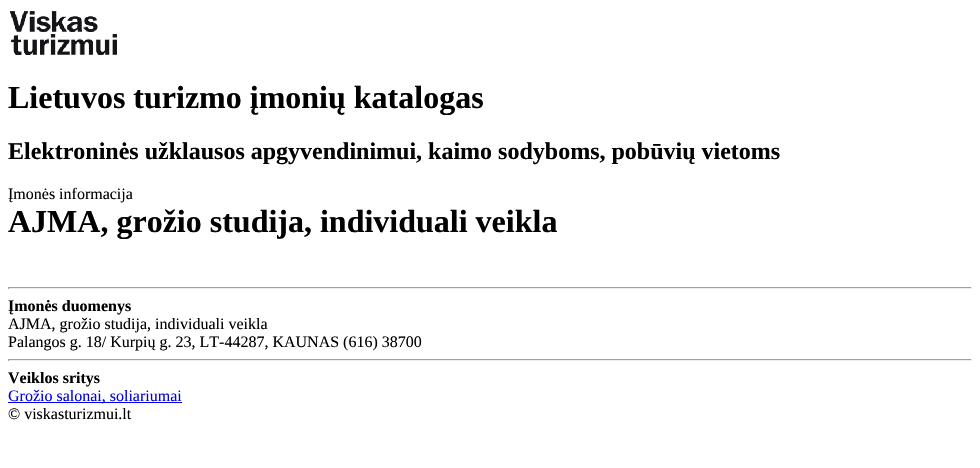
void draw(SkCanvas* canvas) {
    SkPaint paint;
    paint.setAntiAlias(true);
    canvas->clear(0xFFFFFFFF);
    canvas->drawImageRect(SkImages::DeferredFromEncodedData(SkData::MakeFromFileName("img1.png")), SkRect::MakeXYWH(10, 11, 107, 44), SkSamplingOptions());
    SkFont font1(fontMgr->matchFamilyStyle("Liberation Serif", SkFontStyle::Bold()), 32);
    font1.setSubpixel(true);
    paint.setColor(0xFF000000);
    canvas->drawString("Lietuvos turizmo įmonių katalogas", 8, 108, font1, paint);
    SkFont font2(fontMgr->matchFamilyStyle("Liberation Serif", SkFontStyle::Bold()), 24);
    font2.setSubpixel(true);
    canvas->drawString("Elektroninės užklausos apgyvendinimui, kaimo sodyboms, pobūvių vietoms", 8, 159, font2, paint);
    SkFont font3(fontMgr->matchFamilyStyle("Liberation Serif", SkFontStyle::Normal()), 16);
    font3.setSubpixel(true);
    canvas->drawString("Įmonės informacija", 8, 199, font3, paint);
    canvas->drawString("AJMA, grožio studija, individuali veikla", 8, 232, font1, paint);
    paint.setColor(0xFF9F9F9F);
    canvas->drawRect(SkRect::MakeXYWH(8, 287, 964, 1), paint);
    paint.setColor(0xFFEEEEEE);
    canvas->drawRect(SkRect::MakeXYWH(971, 287, 1, 2), paint);
    canvas->drawRect(SkRect::MakeXYWH(8, 288, 964, 1), paint);
    paint.setColor(0xFF9F9F9F);
    canvas->drawRect(SkRect::MakeXYWH(8, 287, 1, 2), paint);
    SkFont font4(fontMgr->matchFamilyStyle("Liberation Serif", SkFontStyle::Bold()), 16);
    font4.setSubpixel(true);
    paint.setColor(0xFF000000);
    canvas->drawString("Įmonės duomenys", 8, 311, font4, paint);
    canvas->drawString("AJMA, grožio studija, individuali veikla", 8, 329, font3, paint);
    canvas->drawString("Palangos g. 18/ Kurpių g. 23, LT-44287, KAUNAS (616) 38700", 8, 347, font3, paint);
    paint.setColor(0xFF9F9F9F);
    canvas->drawRect(SkRect::MakeXYWH(8, 359, 964, 1), paint);
    paint.setColor(0xFFEEEEEE);
    canvas->drawRect(SkRect::MakeXYWH(971, 359, 1, 2), paint);
    canvas->drawRect(SkRect::MakeXYWH(8, 360, 964, 1), paint);
    paint.setColor(0xFF9F9F9F);
    canvas->drawRect(SkRect::MakeXYWH(8, 359, 1, 2), paint);
    paint.setColor(0xFF000000);
    canvas->drawString("Veiklos sritys", 8, 383, font4, paint);
    paint.setColor(0xFF0000EE);
    canvas->drawRect(SkRect::MakeXYWH(8, 402, 174, 1), paint);
    canvas->drawString("Grožio salonai, soliariumai", 8, 401, font3, paint);
    paint.setColor(0xFF000000);
    canvas->drawString("© viskasturizmui.lt", 8, 419, font3, paint);
}
